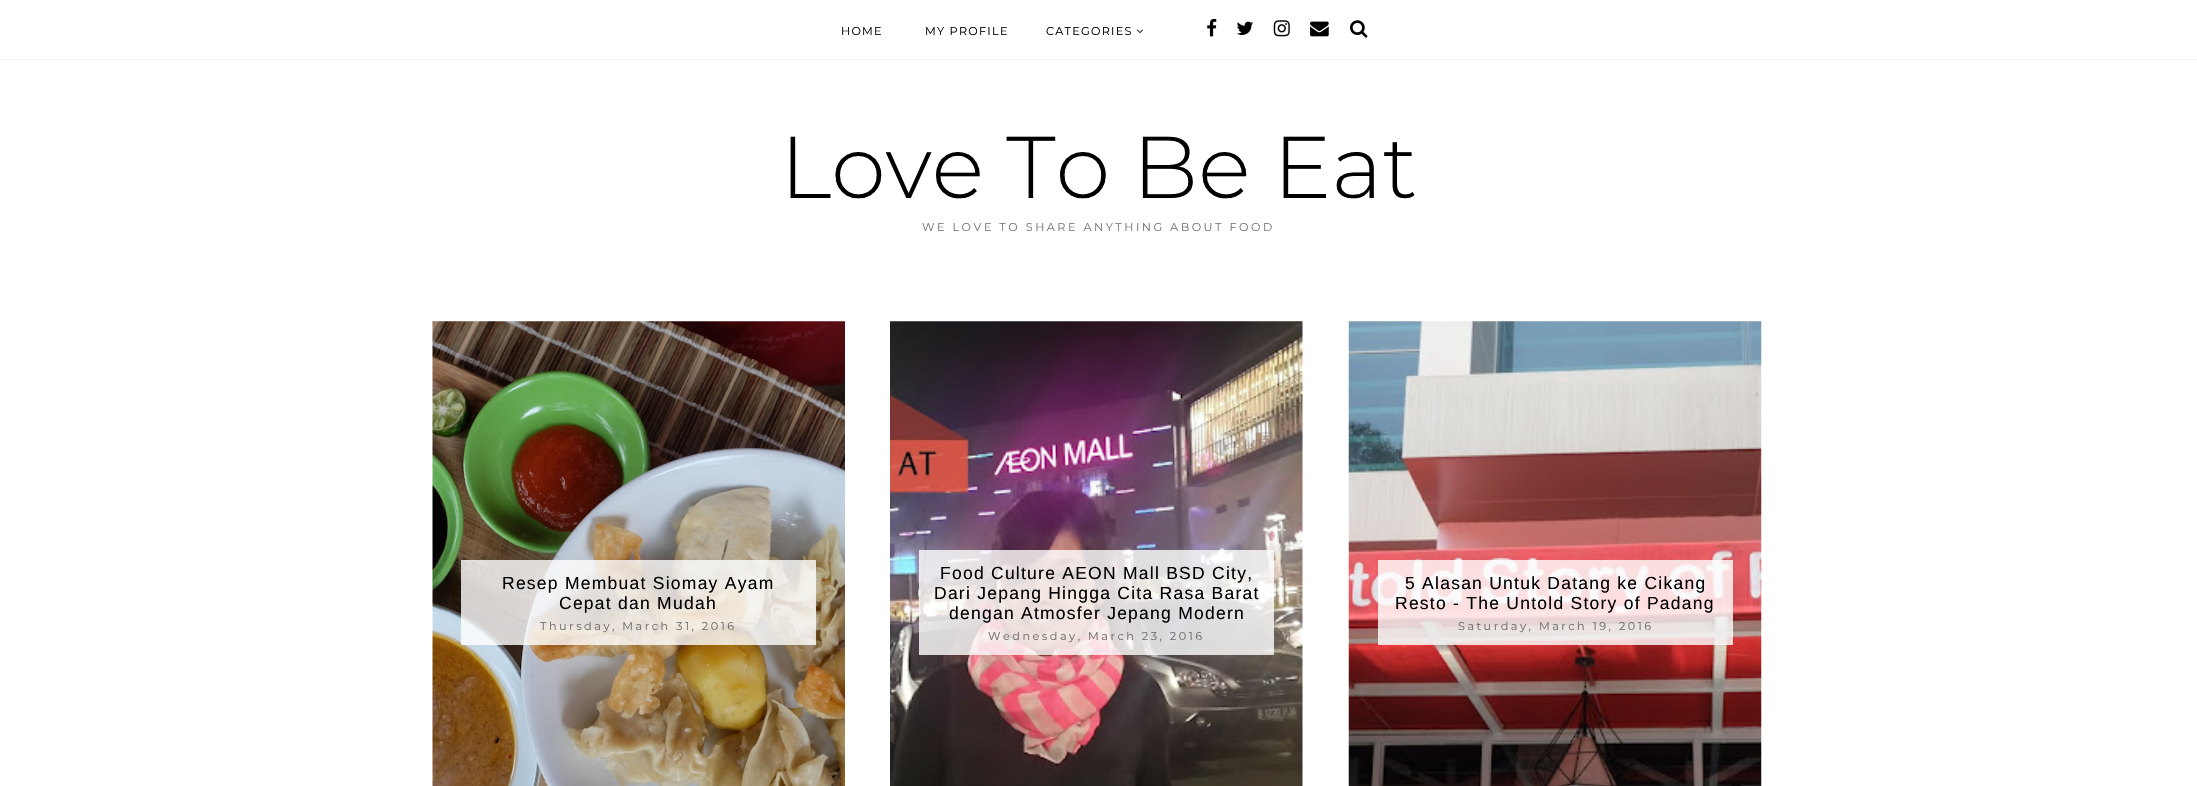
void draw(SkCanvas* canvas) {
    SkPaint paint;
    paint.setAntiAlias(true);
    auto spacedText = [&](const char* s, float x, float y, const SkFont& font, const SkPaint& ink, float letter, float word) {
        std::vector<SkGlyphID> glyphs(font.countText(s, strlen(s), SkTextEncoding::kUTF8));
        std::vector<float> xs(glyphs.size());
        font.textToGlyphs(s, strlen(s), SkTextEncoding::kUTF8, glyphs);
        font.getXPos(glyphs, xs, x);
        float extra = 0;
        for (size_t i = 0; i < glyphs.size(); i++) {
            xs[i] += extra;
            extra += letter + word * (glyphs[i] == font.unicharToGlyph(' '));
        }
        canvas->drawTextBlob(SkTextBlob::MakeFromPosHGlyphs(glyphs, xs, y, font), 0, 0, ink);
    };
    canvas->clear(0xFFFFFFFF);
    paint.setColor(0xFFF6F6F6);
    canvas->drawRect(SkRect::MakeXYWH(0, 59, 2197, 1), paint);
    SkFont font1(fontMgr->matchFamilyStyle("Montserrat", SkFontStyle(100, SkFontStyle::kNormal_Width, SkFontStyle::kUpright_Slant)), 11.25f);
    font1.setSubpixel(true);
    paint.setColor(0xFF000000);
    spacedText("HOME", 841, 35, font1, paint, 1.25f, 0);
    spacedText("MY PROFILE", 925, 35, font1, paint, 1.25f, 0);
    spacedText("CATEGORIES", 1046, 35, font1, paint, 1.25f, 0);
    canvas->drawImageRect(SkImages::DeferredFromEncodedData(SkData::MakeFromFileName("img1.png")), SkRect::MakeXYWH(1136, 29, 7, 5), SkSamplingOptions());
    canvas->drawImageRect(SkImages::DeferredFromEncodedData(SkData::MakeFromFileName("img2.png")), SkRect::MakeXYWH(1207, 18, 10, 19), SkSamplingOptions());
    canvas->drawImageRect(SkImages::DeferredFromEncodedData(SkData::MakeFromFileName("img3.png")), SkRect::MakeXYWH(1236, 21, 17, 14), SkSamplingOptions());
    canvas->drawImageRect(SkImages::DeferredFromEncodedData(SkData::MakeFromFileName("img4.png")), SkRect::MakeXYWH(1273, 20, 17, 17), SkSamplingOptions());
    canvas->drawImageRect(SkImages::DeferredFromEncodedData(SkData::MakeFromFileName("img5.png")), SkRect::MakeXYWH(1310, 21, 19, 16), SkSamplingOptions());
    canvas->drawImageRect(SkImages::DeferredFromEncodedData(SkData::MakeFromFileName("img6.png")), SkRect::MakeXYWH(1350, 20, 18, 18), SkSamplingOptions());
    SkFont font2(fontMgr->matchFamilyStyle("Montserrat", SkFontStyle(300, SkFontStyle::kNormal_Width, SkFontStyle::kUpright_Slant)), 87.5f);
    font2.setSubpixel(true);
    canvas->drawString("Love To Be Eat", 780, 198, font2, paint);
    paint.setColor(0xFF787878);
    spacedText("WE LOVE TO SHARE ANYTHING ABOUT FOOD", 922, 231, font1, paint, 2.5f, 0);
    canvas->drawImageRect(SkImages::DeferredFromEncodedData(SkData::MakeFromFileName("img7.png")), SkRect::MakeXYWH(432, 321, 413, 465), SkSamplingOptions());
    paint.setColor(0xCCFFFFFF);
    canvas->drawRect(SkRect::MakeXYWH(461, 560, 355, 85), paint);
    SkFont font3(fontMgr->matchFamilyStyle("Liberation Sans", SkFontStyle::Normal()), 17.5f);
    font3.setSubpixel(true);
    paint.setColor(0xFF000000);
    spacedText("Resep Membuat Siomay Ayam", 502, 589, font3, paint, 1.25f, 0);
    spacedText("Cepat dan Mudah", 559, 609, font3, paint, 1.25f, 0);
    paint.setColor(0xFF6D6D6D);
    spacedText("Thursday, March 31, 2016", 540, 630, font1, paint, 2.5f, 0);
    canvas->drawImageRect(SkImages::DeferredFromEncodedData(SkData::MakeFromFileName("img8.png")), SkRect::MakeXYWH(890, 321, 413, 465), SkSamplingOptions());
    paint.setColor(0xCCFFFFFF);
    canvas->drawRect(SkRect::MakeXYWH(919, 550, 355, 105), paint);
    paint.setColor(0xFF000000);
    spacedText("Food Culture AEON Mall BSD City,", 940, 579, font3, paint, 1.25f, 0);
    spacedText("Dari Jepang Hingga Cita Rasa Barat", 934, 599, font3, paint, 1.25f, 0);
    spacedText("dengan Atmosfer Jepang Modern", 949, 619, font3, paint, 1.25f, 0);
    paint.setColor(0xFF6D6D6D);
    spacedText("Wednesday, March 23, 2016", 988, 640, font1, paint, 2.5f, 0);
    canvas->drawImageRect(SkImages::DeferredFromEncodedData(SkData::MakeFromFileName("img9.png")), SkRect::MakeXYWH(1348, 321, 414, 465), SkSamplingOptions());
    paint.setColor(0xCCFFFFFF);
    canvas->drawRect(SkRect::MakeXYWH(1378, 560, 355, 85), paint);
    paint.setColor(0xFF000000);
    spacedText("5 Alasan Untuk Datang ke Cikang", 1405, 589, font3, paint, 1.25f, 0);
    spacedText("Resto - The Untold Story of Padang", 1395, 609, font3, paint, 1.25f, 0);
    paint.setColor(0xFF6D6D6D);
    spacedText("Saturday, March 19, 2016", 1458, 630, font1, paint, 2.5f, 0);
}
